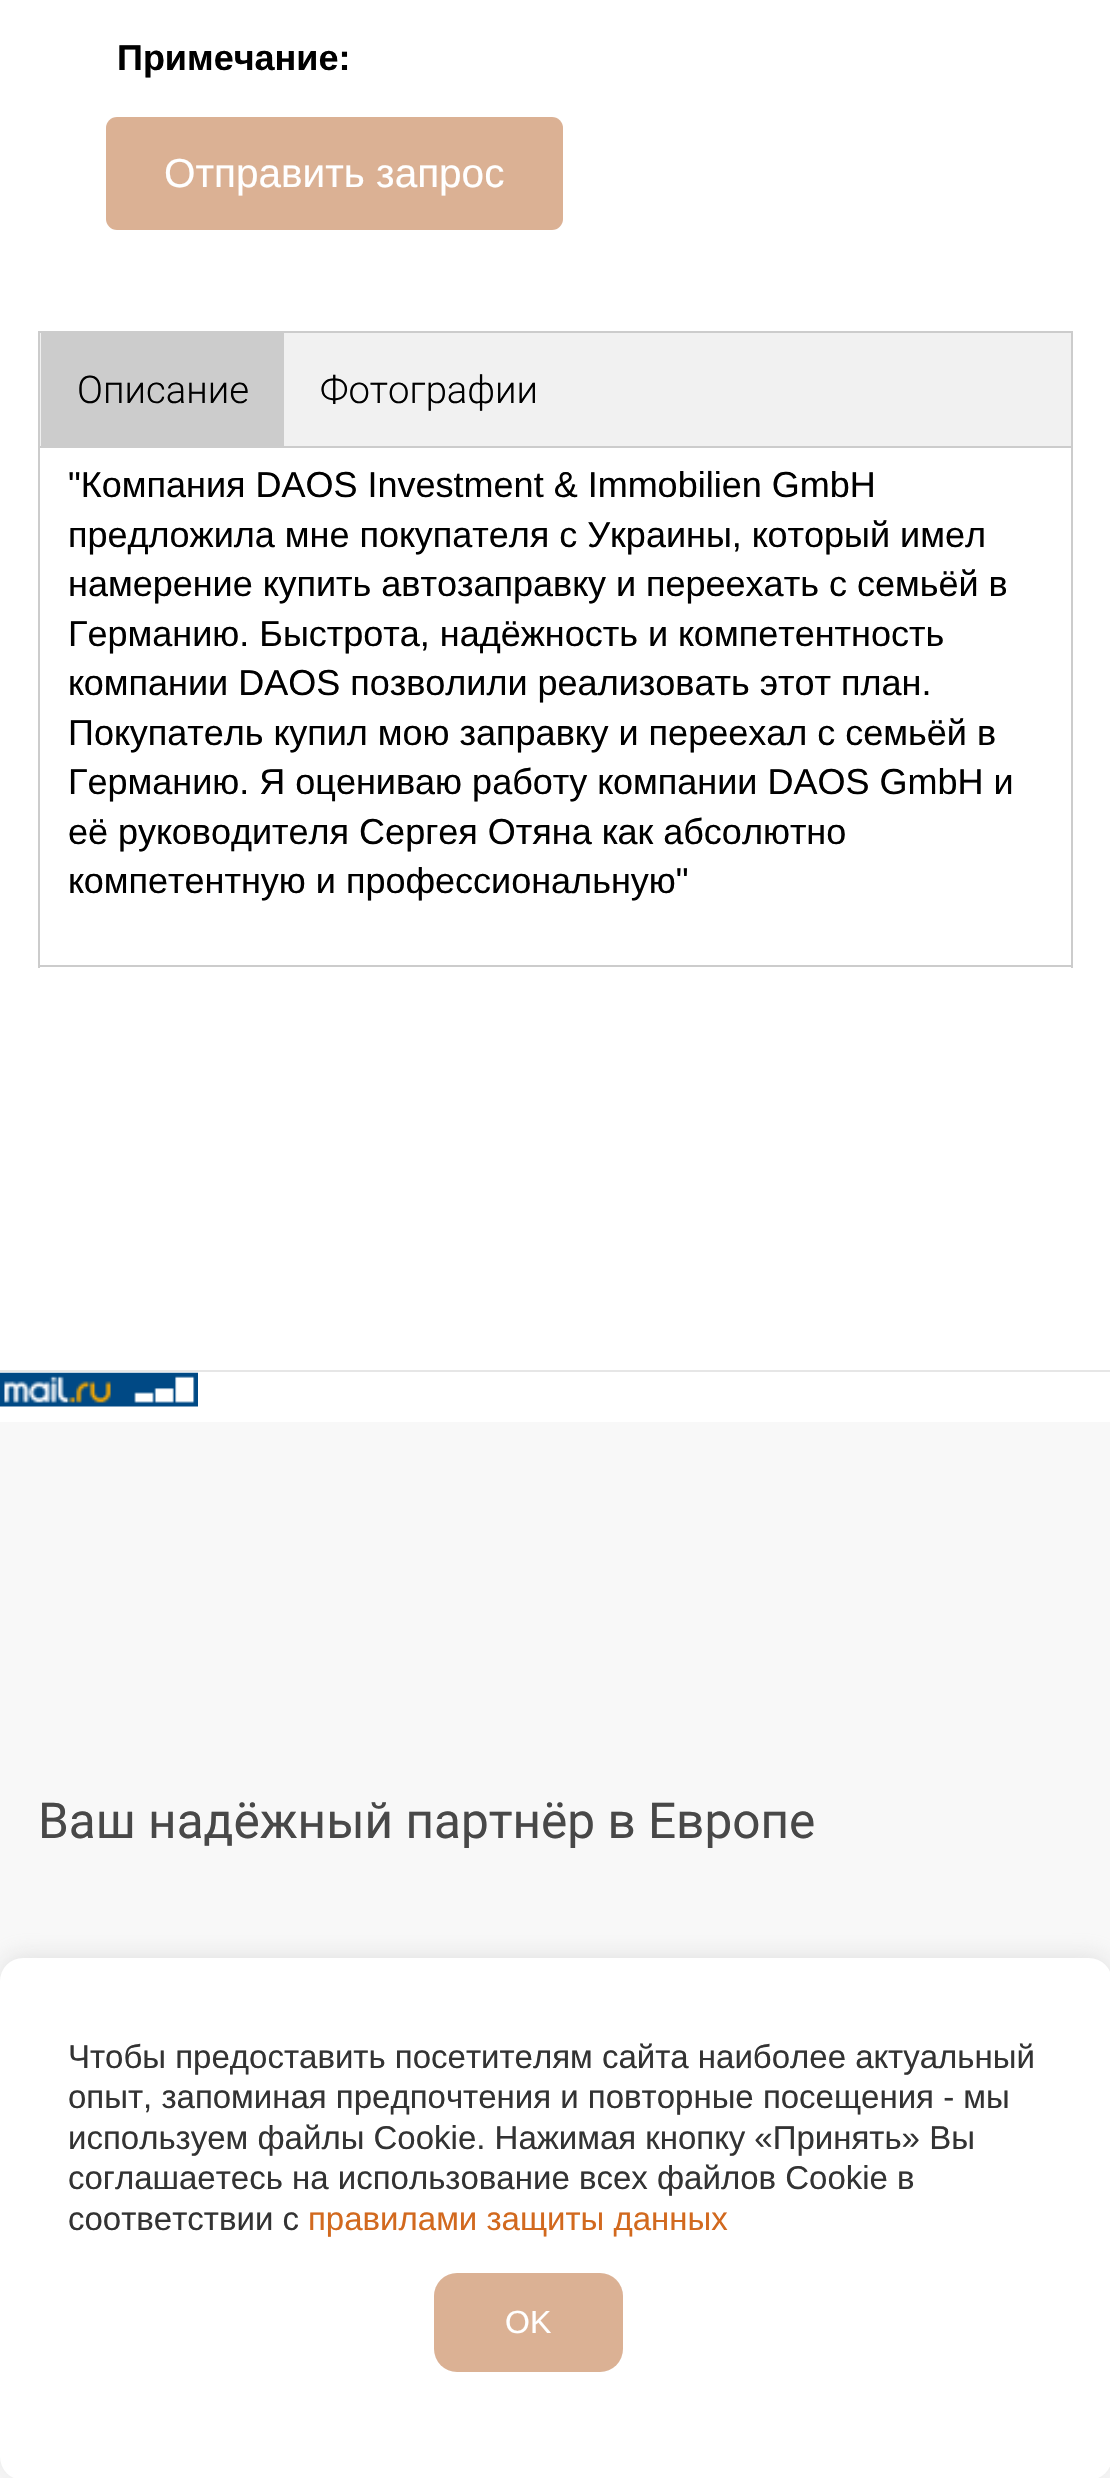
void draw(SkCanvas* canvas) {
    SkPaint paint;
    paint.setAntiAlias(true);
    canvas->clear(0xFFFFFFFF);
    SkFont font1(fontMgr->matchFamilyStyle("Liberation Sans", SkFontStyle::Bold()), 36);
    font1.setSubpixel(true);
    paint.setColor(0xFF000000);
    canvas->drawString("Примечание:", 117, 70, font1, paint);
    paint.setColor(0xFFDBB194);
    canvas->drawRoundRect(SkRect::MakeXYWH(106, 117, 457, 113), 11, 11, paint);
    SkFont font2(fontMgr->matchFamilyStyle("Liberation Sans", SkFontStyle::Normal()), 40.5f);
    font2.setSubpixel(true);
    paint.setColor(0xFFFFFFFF);
    canvas->drawString("Отправить запрос", 164, 187, font2, paint);
    paint.setColor(0xFFF1F1F1);
    canvas->drawRect(SkRect::MakeXYWH(39, 332, 1033, 115), paint);
    paint.setStyle(SkPaint::kStroke_Style);
    paint.setStrokeWidth(2);
    paint.setColor(0xFFCCCCCC);
    canvas->drawRect(SkRect::MakeXYWH(39, 332, 1033, 115), paint);
    paint.setStyle(SkPaint::kFill_Style);
    canvas->drawRect(SkRect::MakeXYWH(41, 333, 243, 113), paint);
    SkFont font3(fontMgr->matchFamilyStyle("Roboto", SkFontStyle(300, SkFontStyle::kNormal_Width, SkFontStyle::kUpright_Slant)), 38.25f);
    font3.setSubpixel(true);
    paint.setColor(0xFF000000);
    canvas->drawString("Описание", 77, 403, font3, paint);
    canvas->drawString("Фотографии", 320, 403, font3, paint);
    paint.setColor(0xFFCCCCCC);
    canvas->drawRect(SkRect::MakeXYWH(1071, 448, 2, 520), paint);
    canvas->drawRect(SkRect::MakeXYWH(38, 965, 1035, 2), paint);
    canvas->drawRect(SkRect::MakeXYWH(38, 448, 2, 520), paint);
    SkFont font4(fontMgr->matchFamilyStyle("Liberation Sans", SkFontStyle::Normal()), 36);
    font4.setSubpixel(true);
    paint.setColor(0xFF000000);
    canvas->drawString("\"Компания DAOS Investment & Immobilien GmbH", 68, 497, font4, paint);
    canvas->drawString("предложила мне покупателя с Украины, который имел", 68, 547, font4, paint);
    canvas->drawString("намерение купить автозаправку и переехать с семьёй в", 68, 596, font4, paint);
    canvas->drawString("Германию. Быстрота, надёжность и компетентность", 68, 646, font4, paint);
    canvas->drawString("компании DAOS позволили реализовать этот план.", 68, 695, font4, paint);
    canvas->drawString("Покупатель купил мою заправку и переехал с семьёй в", 68, 745, font4, paint);
    canvas->drawString("Германию. Я оцениваю работу компании DAOS GmbH и", 68, 794, font4, paint);
    canvas->drawString("её руководителя Сергея Отяна как абсолютно", 68, 844, font4, paint);
    canvas->drawString("компетентную и профессиональную\"", 68, 893, font4, paint);
    paint.setColor(0xFFE6E6E6);
    canvas->drawRect(SkRect::MakeXYWH(0, 1370, 1110, 2), paint);
    canvas->drawImageRect(SkImages::DeferredFromEncodedData(SkData::MakeFromFileName("img1.png")), SkRect::MakeXYWH(0, 1372, 198, 35), SkSamplingOptions());
    paint.setColor(0xFFF8F8F8);
    canvas->drawRect(SkRect::MakeXYWH(0, 1422, 1110, 1056), paint);
    SkFont font5(fontMgr->matchFamilyStyle("Roboto", SkFontStyle::Normal()), 49.5f);
    font5.setSubpixel(true);
    paint.setColor(0xFF484848);
    canvas->drawString("Ваш надёжный партнёр в Европе", 38, 1838, font5, paint);
    paint.setColor(0x4DACABAB);
    paint.setMaskFilter(SkMaskFilter::MakeBlur(kNormal_SkBlurStyle, 11));
    canvas->drawRoundRect(SkRect::MakeXYWH(0, 1955, 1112, 522), 23, 23, paint);
    paint.setMaskFilter(nullptr);
    paint.setColor(0xFFFFFFFF);
    canvas->drawRoundRect(SkRect::MakeXYWH(0, 1958, 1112, 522), 23, 23, paint);
    SkFont font6(fontMgr->matchFamilyStyle("Liberation Sans", SkFontStyle::Normal()), 33);
    font6.setSubpixel(true);
    paint.setColor(0xFF333333);
    canvas->drawString("Чтобы предоставить посетителям сайта наиболее актуальный", 68, 2068, font6, paint);
    canvas->drawString("опыт, запоминая предпочтения и повторные посещения - мы", 68, 2108, font6, paint);
    canvas->drawString("используем файлы Cookie. Нажимая кнопку «Принять» Вы", 68, 2149, font6, paint);
    canvas->drawString("соглашаетесь на использование всех файлов Сookie в", 68, 2189, font6, paint);
    canvas->drawString("соответствии с", 68, 2230, font6, paint);
    paint.setColor(0xFFD2691E);
    canvas->drawString("правилами защиты данных", 308, 2230, font6, paint);
    paint.setColor(0xFFDBB194);
    canvas->drawRoundRect(SkRect::MakeXYWH(434, 2273, 189, 99), 23, 23, paint);
    SkFont font7(fontMgr->matchFamilyStyle("Liberation Sans", SkFontStyle::Normal()), 32);
    font7.setSubpixel(true);
    paint.setColor(0xFFFFFFFF);
    canvas->drawString("OK", 505, 2333, font7, paint);
}
